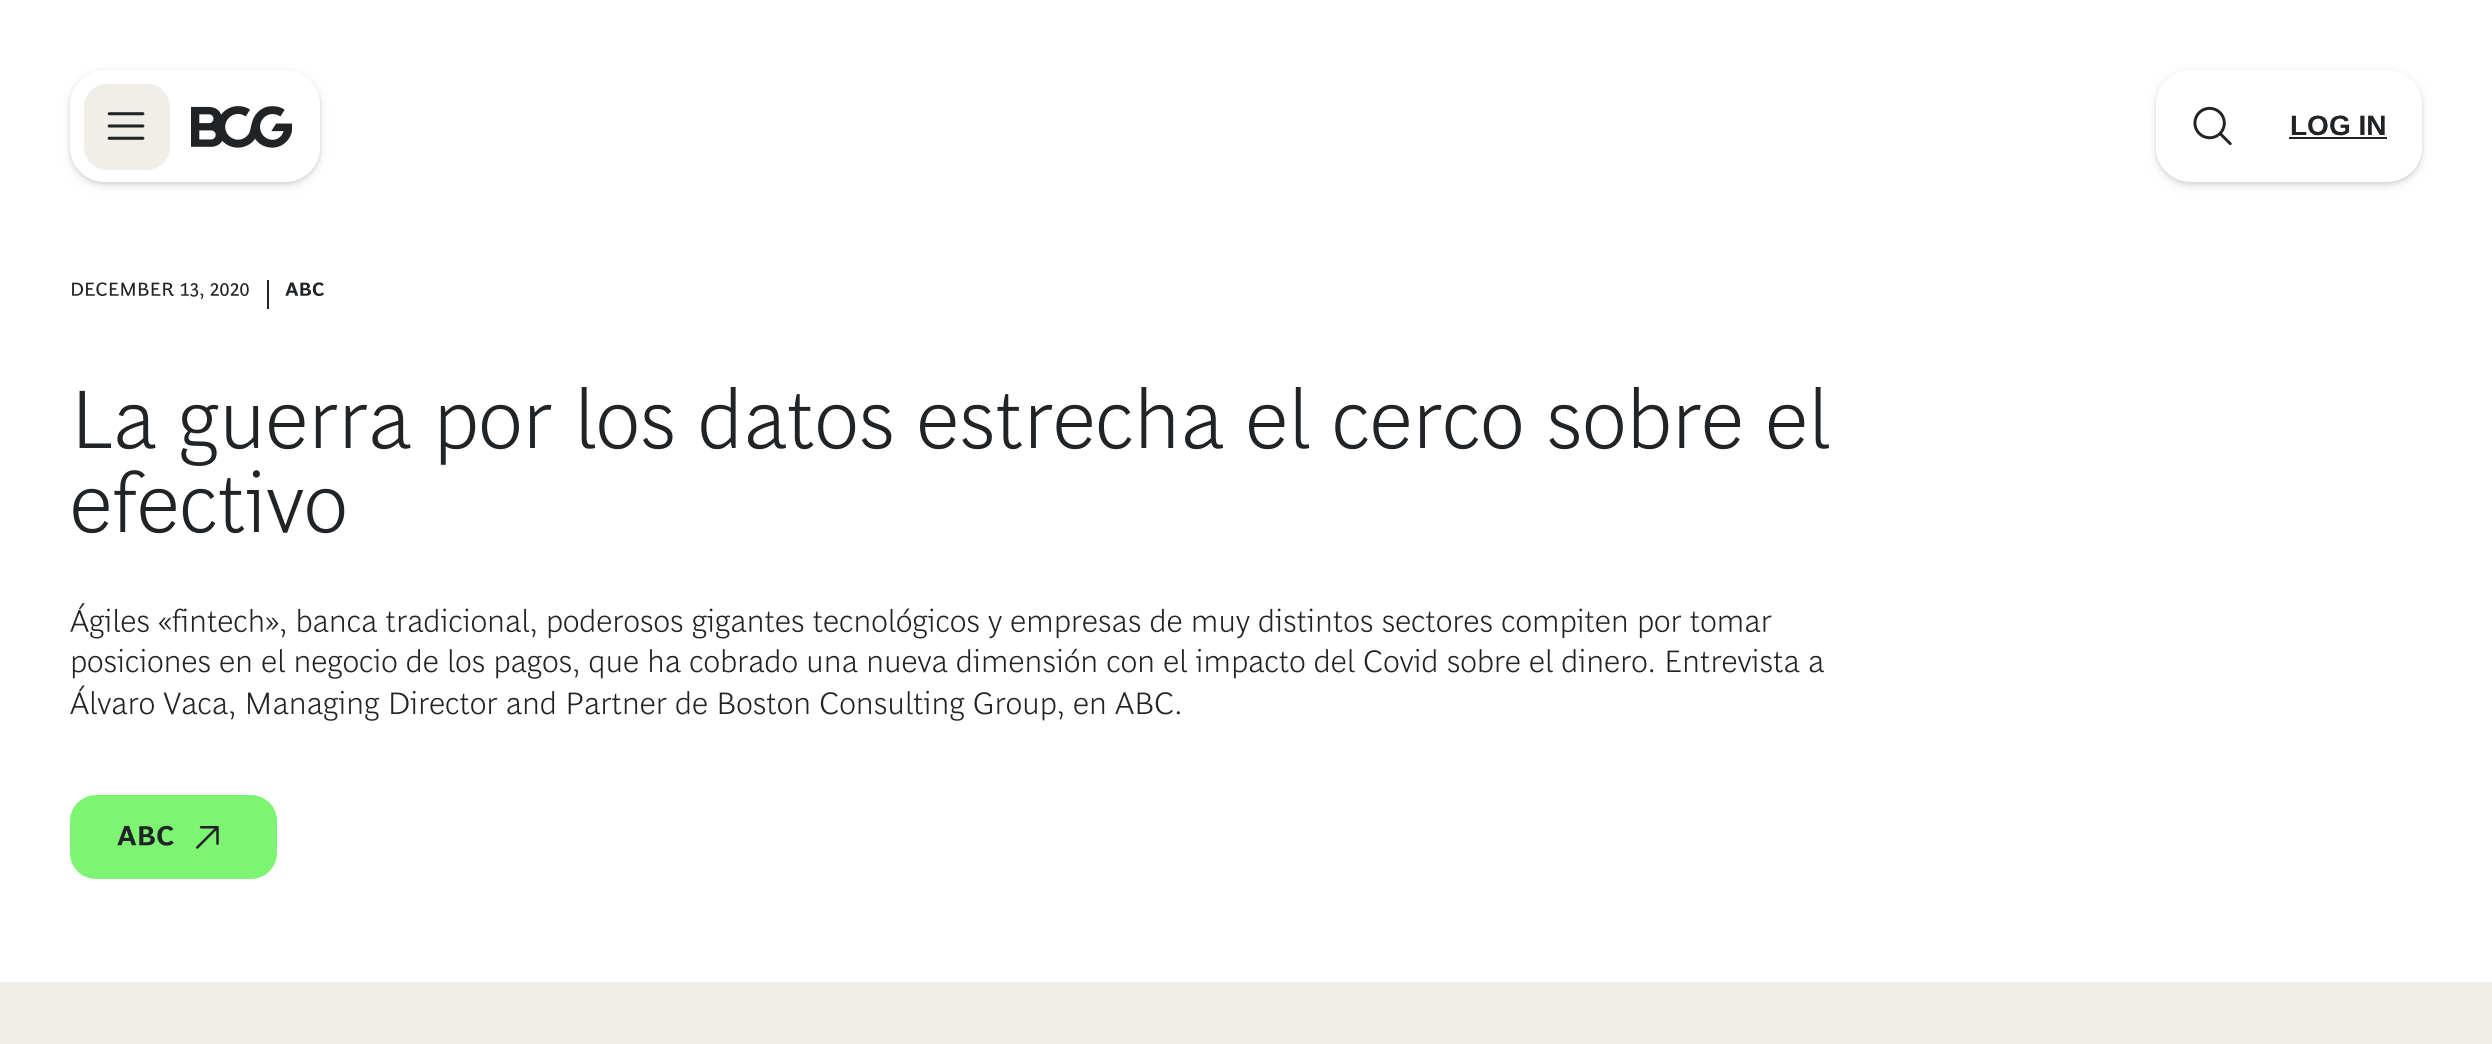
void draw(SkCanvas* canvas) {
    SkPaint paint;
    paint.setAntiAlias(true);
    canvas->clear(0xFFFFFFFF);
    canvas->save();
    canvas->clipPath(SkPathBuilder(SkPathFillType::kEvenOdd).moveTo(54, 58).lineTo(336, 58).lineTo(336, 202).lineTo(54, 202).close().moveTo(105, 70).lineTo(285, 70).cubicTo(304.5f, 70, 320, 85.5f, 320, 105).lineTo(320, 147).cubicTo(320, 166.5f, 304.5f, 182, 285, 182).lineTo(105, 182).cubicTo(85.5f, 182, 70, 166.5f, 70, 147).lineTo(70, 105).cubicTo(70, 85.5f, 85.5f, 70, 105, 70).close().detach(), true);
    paint.setColor(0x14000000);
    paint.setMaskFilter(SkMaskFilter::MakeBlur(kNormal_SkBlurStyle, 5));
    canvas->drawRoundRect(SkRect::MakeXYWH(70, 74, 250, 112), 35, 35, paint);
    paint.setMaskFilter(nullptr);
    canvas->restore();
    canvas->save();
    canvas->clipPath(SkPathBuilder(SkPathFillType::kEvenOdd).moveTo(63, 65).lineTo(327, 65).lineTo(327, 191).lineTo(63, 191).close().moveTo(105, 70).lineTo(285, 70).cubicTo(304.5f, 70, 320, 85.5f, 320, 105).lineTo(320, 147).cubicTo(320, 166.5f, 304.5f, 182, 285, 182).lineTo(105, 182).cubicTo(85.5f, 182, 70, 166.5f, 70, 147).lineTo(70, 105).cubicTo(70, 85.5f, 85.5f, 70, 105, 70).close().detach(), true);
    paint.setColor(0x1F000000);
    paint.setMaskFilter(SkMaskFilter::MakeBlur(kNormal_SkBlurStyle, 2));
    canvas->drawRoundRect(SkRect::MakeXYWH(70, 72, 250, 112), 35, 35, paint);
    paint.setMaskFilter(nullptr);
    canvas->restore();
    paint.setColor(0xB3FFFFFF);
    canvas->drawRoundRect(SkRect::MakeXYWH(70, 70, 250, 112), 35, 35, paint);
    paint.setColor(0xFFF1EEEA);
    canvas->drawRoundRect(SkRect::MakeXYWH(84, 84, 86, 86), 23, 23, paint);
    canvas->drawImageRect(SkImages::DeferredFromEncodedData(SkData::MakeFromFileName("img1.png")), SkRect::MakeXYWH(107, 112, 38, 28), SkSamplingOptions());
    canvas->drawImageRect(SkImages::DeferredFromEncodedData(SkData::MakeFromFileName("img2.png")), SkRect::MakeXYWH(191, 106, 101, 42), SkSamplingOptions());
    canvas->save();
    canvas->clipPath(SkPathBuilder(SkPathFillType::kEvenOdd).moveTo(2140, 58).lineTo(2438, 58).lineTo(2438, 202).lineTo(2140, 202).close().moveTo(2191, 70).lineTo(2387, 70).cubicTo(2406.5f, 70, 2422, 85.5f, 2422, 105).lineTo(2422, 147).cubicTo(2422, 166.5f, 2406.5f, 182, 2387, 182).lineTo(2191, 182).cubicTo(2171.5f, 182, 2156, 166.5f, 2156, 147).lineTo(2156, 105).cubicTo(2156, 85.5f, 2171.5f, 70, 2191, 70).close().detach(), true);
    paint.setColor(0x14000000);
    paint.setMaskFilter(SkMaskFilter::MakeBlur(kNormal_SkBlurStyle, 5));
    canvas->drawRoundRect(SkRect::MakeXYWH(2156, 74, 266, 112), 35, 35, paint);
    paint.setMaskFilter(nullptr);
    canvas->restore();
    canvas->save();
    canvas->clipPath(SkPathBuilder(SkPathFillType::kEvenOdd).moveTo(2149, 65).lineTo(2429, 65).lineTo(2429, 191).lineTo(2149, 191).close().moveTo(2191, 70).lineTo(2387, 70).cubicTo(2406.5f, 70, 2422, 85.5f, 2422, 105).lineTo(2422, 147).cubicTo(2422, 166.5f, 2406.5f, 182, 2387, 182).lineTo(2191, 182).cubicTo(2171.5f, 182, 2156, 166.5f, 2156, 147).lineTo(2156, 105).cubicTo(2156, 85.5f, 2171.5f, 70, 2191, 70).close().detach(), true);
    paint.setColor(0x1F000000);
    paint.setMaskFilter(SkMaskFilter::MakeBlur(kNormal_SkBlurStyle, 2));
    canvas->drawRoundRect(SkRect::MakeXYWH(2156, 72, 266, 112), 35, 35, paint);
    paint.setMaskFilter(nullptr);
    canvas->restore();
    paint.setColor(0xB3FFFFFF);
    canvas->drawRoundRect(SkRect::MakeXYWH(2156, 70, 266, 112), 35, 35, paint);
    canvas->drawImageRect(SkImages::DeferredFromEncodedData(SkData::MakeFromFileName("img3.png")), SkRect::MakeXYWH(2193, 106, 39, 40), SkSamplingOptions());
    SkFont font1(fontMgr->matchFamilyStyle("Liberation Sans", SkFontStyle::Bold()), 28);
    font1.setSubpixel(true);
    paint.setColor(0xFF212427);
    canvas->drawString("LOG IN", 2290, 135, font1, paint);
    canvas->drawRect(SkRect::MakeXYWH(2289, 137, 98, 2), paint);
    canvas->drawImageRect(SkImages::DeferredFromEncodedData(SkData::MakeFromFileName("img4.png")), SkRect::MakeXYWH(72, 282, 177, 18), SkSamplingOptions());
    canvas->drawRect(SkRect::MakeXYWH(267, 280, 2, 29), paint);
    canvas->drawImageRect(SkImages::DeferredFromEncodedData(SkData::MakeFromFileName("img5.png")), SkRect::MakeXYWH(285, 282, 39, 14), SkSamplingOptions());
    canvas->drawImageRect(SkImages::DeferredFromEncodedData(SkData::MakeFromFileName("img6.png")), SkRect::MakeXYWH(79, 387, 1751, 79), SkSamplingOptions());
    canvas->drawImageRect(SkImages::DeferredFromEncodedData(SkData::MakeFromFileName("img7.png")), SkRect::MakeXYWH(73, 470, 272, 64), SkSamplingOptions());
    canvas->drawImageRect(SkImages::DeferredFromEncodedData(SkData::MakeFromFileName("img8.png")), SkRect::MakeXYWH(70, 603, 1702, 36), SkSamplingOptions());
    canvas->drawImageRect(SkImages::DeferredFromEncodedData(SkData::MakeFromFileName("img9.png")), SkRect::MakeXYWH(72, 648, 1752, 31), SkSamplingOptions());
    canvas->drawImageRect(SkImages::DeferredFromEncodedData(SkData::MakeFromFileName("img10.png")), SkRect::MakeXYWH(70, 685, 1110, 36), SkSamplingOptions());
    paint.setColor(0xFF7EF473);
    canvas->drawRoundRect(SkRect::MakeXYWH(70, 795, 207, 84), 26, 26, paint);
    canvas->drawImageRect(SkImages::DeferredFromEncodedData(SkData::MakeFromFileName("img11.png")), SkRect::MakeXYWH(117, 825, 57, 21), SkSamplingOptions());
    canvas->drawImageRect(SkImages::DeferredFromEncodedData(SkData::MakeFromFileName("img12.png")), SkRect::MakeXYWH(196, 826, 23, 23), SkSamplingOptions());
    paint.setColor(0xFFF1EEEA);
    canvas->drawRect(SkRect::MakeXYWH(0, 982, 2492, 62), paint);
}
